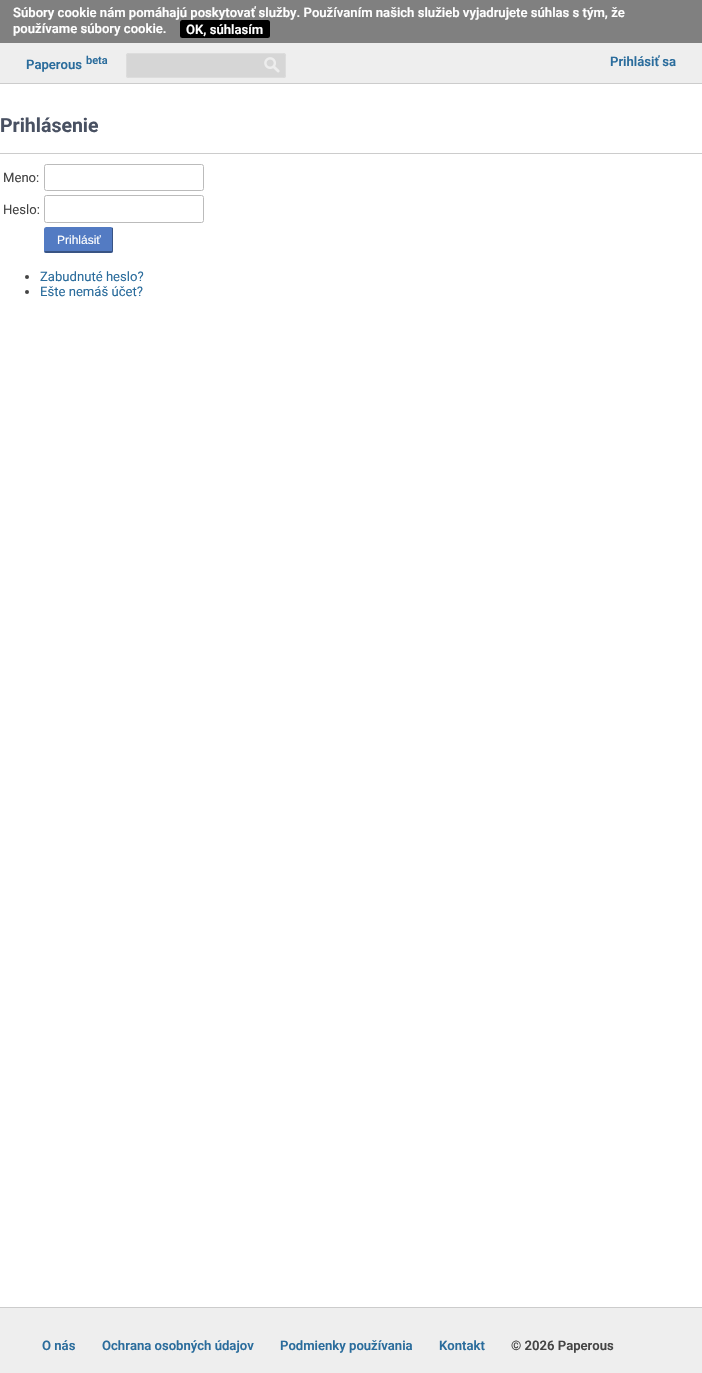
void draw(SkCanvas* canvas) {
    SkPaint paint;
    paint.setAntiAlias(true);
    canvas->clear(0xFFFFFFFF);
    paint.setColor(0xFFEEEEEE);
    canvas->drawRect(SkRect::MakeXYWH(0, 43, 702, 40), paint);
    paint.setColor(0xFFCCCCCC);
    canvas->drawRect(SkRect::MakeXYWH(0, 83, 702, 1), paint);
    paint.setColor(0xFF808080);
    canvas->drawRect(SkRect::MakeXYWH(0, 0, 702, 43), paint);
    SkFont font1(fontMgr->matchFamilyStyle("Roboto", SkFontStyle(600, SkFontStyle::kNormal_Width, SkFontStyle::kUpright_Slant)), 13.1f);
    font1.setSubpixel(true);
    paint.setColor(0xFFFFFFFF);
    canvas->drawString("Súbory cookie nám pomáhajú poskytovať služby. Používaním našich služieb vyjadrujete súhlas s tým, že", 13, 17, font1, paint);
    canvas->drawString("používame súbory cookie.", 13, 33, font1, paint);
    paint.setColor(0xFF000000);
    canvas->drawRoundRect(SkRect::MakeXYWH(180, 20, 90, 18), 2.5f, 2.5f, paint);
    paint.setColor(0xFFFFFFFF);
    canvas->drawString("OK, súhlasím", 186, 34, font1, paint);
    paint.setColor(0xFF2A6C9C);
    canvas->drawString("Paperous", 26, 69, font1, paint);
    SkFont font2(fontMgr->matchFamilyStyle("Roboto", SkFontStyle(600, SkFontStyle::kNormal_Width, SkFontStyle::kUpright_Slant)), 11);
    font2.setSubpixel(true);
    canvas->drawString("beta", 86, 64, font2, paint);
    paint.setColor(0xFFD6D6D6);
    canvas->drawRoundRect(SkRect::MakeXYWH(126, 53, 160, 25), 2.5f, 2.5f, paint);
    canvas->drawImageRect(SkImages::DeferredFromEncodedData(SkData::MakeFromFileName("img1.png")), SkRect::MakeXYWH(264, 57, 16, 16), SkSamplingOptions());
    paint.setStyle(SkPaint::kStroke_Style);
    paint.setStrokeWidth(1);
    paint.setColor(0xFFDDDDDD);
    canvas->drawRoundRect(SkRect::MakeXYWH(126.5f, 53.5f, 159, 24), 2, 2, paint);
    paint.setStyle(SkPaint::kFill_Style);
    paint.setColor(0xFF2A6C9C);
    canvas->drawString("Prihlásiť sa", 610, 66, font1, paint);
    SkFont font3(fontMgr->matchFamilyStyle("Roboto", SkFontStyle::Bold()), 19.5f);
    font3.setSubpixel(true);
    paint.setColor(0xFF495162);
    canvas->drawString("Prihlásenie", 0, 132, font3, paint);
    paint.setColor(0xFFCCCCCC);
    canvas->drawRect(SkRect::MakeXYWH(0, 153, 702, 1), paint);
    SkFont font4(fontMgr->matchFamilyStyle("Roboto", SkFontStyle::Normal()), 13.1f);
    font4.setSubpixel(true);
    paint.setColor(0xFF444444);
    canvas->drawString("Meno:", 3, 182, font4, paint);
    paint.setStyle(SkPaint::kStroke_Style);
    paint.setColor(0xFFBBBBBB);
    canvas->drawRoundRect(SkRect::MakeXYWH(44.5f, 164.5f, 159, 26), 2, 2, paint);
    paint.setStyle(SkPaint::kFill_Style);
    paint.setColor(0xFF444444);
    canvas->drawString("Heslo:", 3, 214, font4, paint);
    paint.setStyle(SkPaint::kStroke_Style);
    paint.setColor(0xFFBBBBBB);
    canvas->drawRoundRect(SkRect::MakeXYWH(44.5f, 195.5f, 159, 27), 2, 2, paint);
    paint.setStyle(SkPaint::kFill_Style);
    paint.setColor(0xFF537BC3);
    canvas->drawRoundRect(SkRect::MakeXYWH(44, 227, 69, 26), 2.5f, 2.5f, paint);
    paint.setColor(0xFF395484);
    canvas->drawPath(SkPathBuilder().moveTo(113, 251).lineTo(113, 229).cubicTo(113, 228.5f, 113, 228, 112.5f, 227.5f).lineTo(111.5f, 228.5f).lineTo(112, 229).lineTo(112, 251).lineTo(112.5f, 252).close().detach(), paint);
    canvas->drawPath(SkPathBuilder().moveTo(46, 253).lineTo(111, 253).lineTo(113, 252).lineTo(112, 251).lineTo(45, 251).lineTo(44, 252).close().detach(), paint);
    SkFont font5(fontMgr->matchFamilyStyle("Liberation Sans", SkFontStyle::Normal()), 12);
    font5.setSubpixel(true);
    paint.setColor(0xFFFFFFFF);
    canvas->drawString("Prihlásiť", 57, 244, font5, paint);
    paint.setColor(0xFF444444);
    canvas->drawCircle(27, 277, 2, paint);
    paint.setColor(0xFF2A6C9C);
    canvas->drawString("Zabudnuté heslo?", 40, 281, font4, paint);
    paint.setColor(0xFF444444);
    canvas->drawCircle(27, 292, 2, paint);
    paint.setColor(0xFF2A6C9C);
    canvas->drawString("Ešte nemáš účet?", 40, 296, font4, paint);
    paint.setColor(0xFFEEEEEE);
    canvas->drawRect(SkRect::MakeXYWH(0, 1308, 702, 65), paint);
    paint.setColor(0xFFCCCCCC);
    canvas->drawRect(SkRect::MakeXYWH(0, 1307, 702, 1), paint);
    paint.setColor(0xFF2A6C9C);
    canvas->drawString("O nás", 42, 1350, font1, paint);
    canvas->drawString("Ochrana osobných údajov", 102, 1350, font1, paint);
    canvas->drawString("Podmienky používania", 280, 1350, font1, paint);
    canvas->drawString("Kontakt", 439, 1350, font1, paint);
    paint.setColor(0xFF444444);
    canvas->drawString("© 2026 Paperous", 511, 1350, font1, paint);
}
